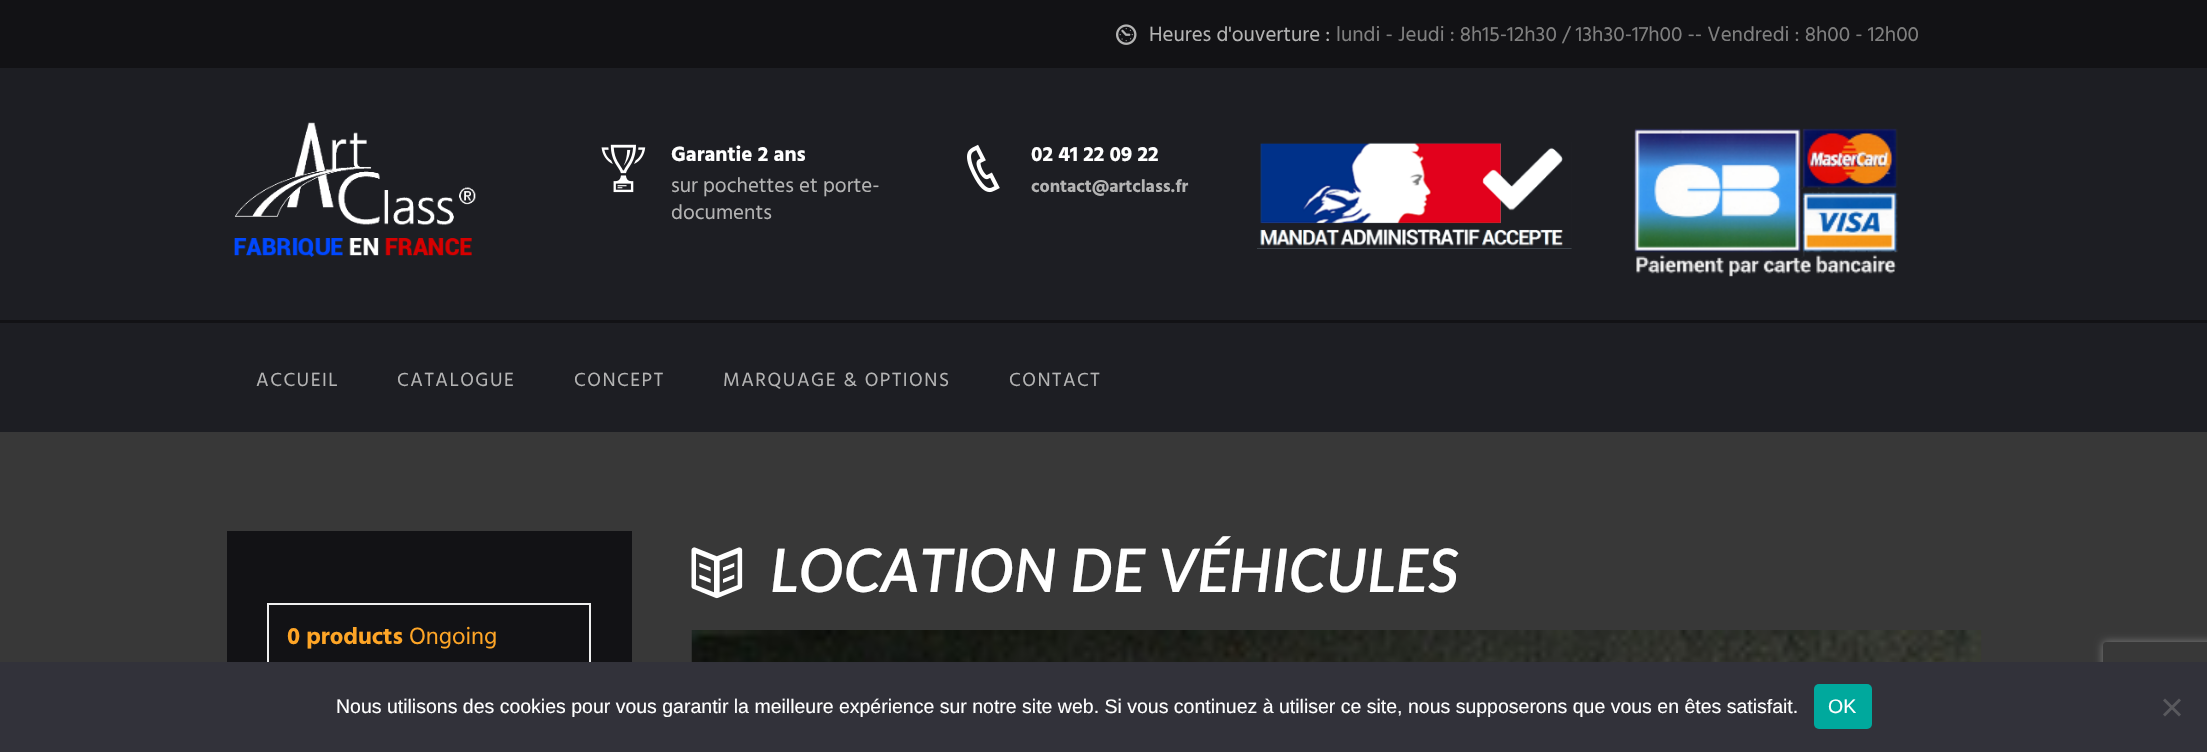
void draw(SkCanvas* canvas) {
    SkPaint paint;
    paint.setAntiAlias(true);
    auto spacedText = [&](const char* s, float x, float y, const SkFont& font, const SkPaint& ink, float letter, float word) {
        std::vector<SkGlyphID> glyphs(font.countText(s, strlen(s), SkTextEncoding::kUTF8));
        std::vector<float> xs(glyphs.size());
        font.textToGlyphs(s, strlen(s), SkTextEncoding::kUTF8, glyphs);
        font.getXPos(glyphs, xs, x);
        float extra = 0;
        for (size_t i = 0; i < glyphs.size(); i++) {
            xs[i] += extra;
            extra += letter + word * (glyphs[i] == font.unicharToGlyph(' '));
        }
        canvas->drawTextBlob(SkTextBlob::MakeFromPosHGlyphs(glyphs, xs, y, font), 0, 0, ink);
    };
    canvas->clear(0xFF383838);
    paint.setColor(0xFF1D1E23);
    canvas->drawRect(SkRect::MakeXYWH(0, 68, 2207, 364), paint);
    paint.setColor(0xFF121215);
    canvas->drawRect(SkRect::MakeXYWH(0, 0, 2207, 68), paint);
    canvas->drawImageRect(SkImages::DeferredFromEncodedData(SkData::MakeFromFileName("img1.png")), SkRect::MakeXYWH(1116, 24, 21, 21), SkSamplingOptions());
    SkFont font1(fontMgr->matchFamilyStyle("Hind", SkFontStyle::Normal()), 21);
    font1.setSubpixel(true);
    paint.setColor(0xFFB4B4B4);
    canvas->drawString("Heures d'ouverture :", 1149, 41, font1, paint);
    paint.setColor(0xFF808080);
    canvas->drawString("lundi - Jeudi : 8h15-12h30 / 13h30-17h00 -- Vendredi : 8h00 - 12h00", 1336, 41, font1, paint);
    canvas->drawImageRect(SkImages::DeferredFromEncodedData(SkData::MakeFromFileName("img2.png")), SkRect::MakeXYWH(234, 122, 242, 135), SkSamplingOptions());
    canvas->drawImageRect(SkImages::DeferredFromEncodedData(SkData::MakeFromFileName("img3.png")), SkRect::MakeXYWH(601, 144, 45, 49), SkSamplingOptions());
    SkFont font2(fontMgr->matchFamilyStyle("Hind", SkFontStyle::Bold()), 21);
    font2.setSubpixel(true);
    paint.setColor(0xFFFFFFFF);
    canvas->drawString("Garantie 2 ans", 671, 161, font2, paint);
    paint.setColor(0xFFB4B4B4);
    canvas->drawString("sur pochettes et porte-", 671, 192, font1, paint);
    canvas->drawString("documents", 671, 219, font1, paint);
    canvas->drawImageRect(SkImages::DeferredFromEncodedData(SkData::MakeFromFileName("img4.png")), SkRect::MakeXYWH(967, 144, 33, 49), SkSamplingOptions());
    paint.setColor(0xFFFFFFFF);
    canvas->drawString("02 41 22 09 22", 1031, 161, font2, paint);
    SkFont font3(fontMgr->matchFamilyStyle("Hind", SkFontStyle::Bold()), 18);
    font3.setSubpixel(true);
    paint.setColor(0xFFB4B4B4);
    canvas->drawString("contact@artclass.fr", 1031, 192, font3, paint);
    canvas->drawImageRect(SkImages::DeferredFromEncodedData(SkData::MakeFromFileName("img5.png")), SkRect::MakeXYWH(1257, 142, 315, 107), SkSamplingOptions());
    canvas->drawImageRect(SkImages::DeferredFromEncodedData(SkData::MakeFromFileName("img6.png")), SkRect::MakeXYWH(1633, 128, 266, 149), SkSamplingOptions());
    paint.setColor(0xFF121215);
    canvas->drawRect(SkRect::MakeXYWH(0, 320, 2207, 3), paint);
    SkFont font4(fontMgr->matchFamilyStyle("Hind", SkFontStyle::Normal()), 19.5f);
    font4.setSubpixel(true);
    paint.setColor(0xFFB4B4B4);
    spacedText("ACCUEIL", 256, 386, font4, paint, 1.5f, 0);
    spacedText("CATALOGUE", 397, 386, font4, paint, 1.5f, 0);
    spacedText("CONCEPT", 574, 386, font4, paint, 1.5f, 0);
    spacedText("MARQUAGE & OPTIONS", 723, 386, font4, paint, 1.5f, 0);
    spacedText("CONTACT", 1009, 386, font4, paint, 1.5f, 0);
    canvas->drawImageRect(SkImages::DeferredFromEncodedData(SkData::MakeFromFileName("img7.png")), SkRect::MakeXYWH(691, 547, 52, 52), SkSamplingOptions());
    SkFont font5(fontMgr->matchFamilyStyle("Lato", SkFontStyle(600, SkFontStyle::kNormal_Width, SkFontStyle::kItalic_Slant)), 60);
    font5.setSubpixel(true);
    paint.setColor(0xFFFFFFFF);
    canvas->drawString("LOCATION DE VÉHICULES", 770, 592, font5, paint);
    canvas->drawImageRect(SkImages::DeferredFromEncodedData(SkData::MakeFromFileName("img8.png")), SkRect::MakeXYWH(691, 630, 1291, 32), SkSamplingOptions());
    paint.setColor(0xFF121215);
    canvas->drawRect(SkRect::MakeXYWH(227, 531, 405, 131), paint);
    paint.setStyle(SkPaint::kStroke_Style);
    paint.setStrokeWidth(2);
    paint.setColor(0xFFEFEFEF);
    canvas->drawRect(SkRect::MakeXYWH(268, 604, 322, 106), paint);
    SkFont font6(fontMgr->matchFamilyStyle("Hind", SkFontStyle::Bold()), 24);
    font6.setSubpixel(true);
    paint.setStyle(SkPaint::kFill_Style);
    paint.setColor(0xFFFEA526);
    canvas->drawString("0 products", 287, 644, font6, paint);
    SkFont font7(fontMgr->matchFamilyStyle("Hind", SkFontStyle::Normal()), 24);
    font7.setSubpixel(true);
    canvas->drawString("Ongoing", 409, 644, font7, paint);
    canvas->save();
    canvas->clipPath(SkPathBuilder(SkPathFillType::kEvenOdd).moveTo(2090, 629).lineTo(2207, 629).lineTo(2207, 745).lineTo(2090, 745).close().moveTo(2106, 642).lineTo(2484, 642).cubicTo(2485.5f, 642, 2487, 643.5f, 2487, 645).lineTo(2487, 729).cubicTo(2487, 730.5f, 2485.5f, 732, 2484, 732).lineTo(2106, 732).cubicTo(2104.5f, 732, 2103, 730.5f, 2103, 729).lineTo(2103, 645).cubicTo(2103, 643.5f, 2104.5f, 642, 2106, 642).close().detach(), true);
    paint.setColor(0xFF808080);
    paint.setMaskFilter(SkMaskFilter::MakeBlur(kNormal_SkBlurStyle, 4));
    canvas->drawRoundRect(SkRect::MakeXYWH(2103, 642, 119, 90), 3, 3, paint);
    paint.setMaskFilter(nullptr);
    canvas->restore();
    paint.setColor(0xFF32323A);
    canvas->drawRect(SkRect::MakeXYWH(0, 662, 2207, 90), paint);
    SkFont font8(fontMgr->matchFamilyStyle("Liberation Sans", SkFontStyle::Normal()), 19.5f);
    font8.setSubpixel(true);
    paint.setColor(0xFFFFFFFF);
    canvas->drawString("Nous utilisons des cookies pour vous garantir la meilleure expérience sur notre site web. Si vous continuez à utiliser ce site, nous supposerons que vous en êtes satisfait.", 336, 713, font8, paint);
    paint.setColor(0xFF00A99D);
    canvas->drawRoundRect(SkRect::MakeXYWH(1814, 684, 58, 45), 5, 5, paint);
    paint.setColor(0xFFFFFFFF);
    canvas->drawString("OK", 1828, 713, font8, paint);
    paint.setColor(0xFF59595D);
    canvas->drawPath(SkPathBuilder().moveTo(2179, 698.5f).lineTo(2181, 700.5f).lineTo(2165, 716.5f).lineTo(2163, 714.5f).close().detach(), paint);
    canvas->drawPath(SkPathBuilder().moveTo(2163, 700.5f).lineTo(2165, 698.5f).lineTo(2181, 714.5f).lineTo(2179, 716.5f).close().detach(), paint);
}
